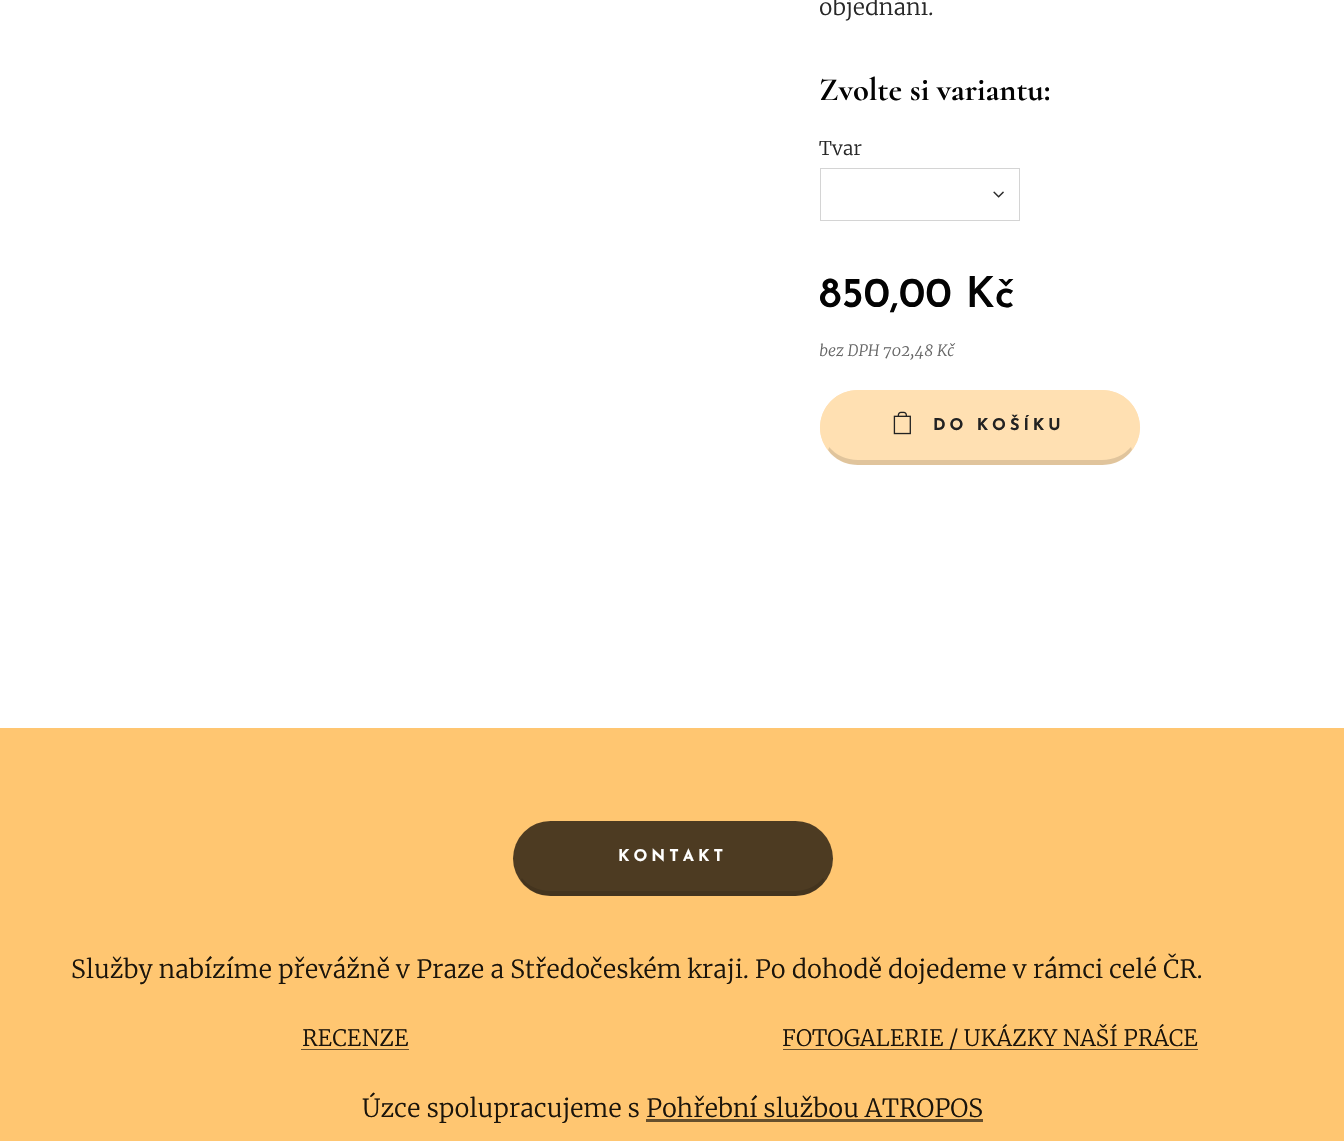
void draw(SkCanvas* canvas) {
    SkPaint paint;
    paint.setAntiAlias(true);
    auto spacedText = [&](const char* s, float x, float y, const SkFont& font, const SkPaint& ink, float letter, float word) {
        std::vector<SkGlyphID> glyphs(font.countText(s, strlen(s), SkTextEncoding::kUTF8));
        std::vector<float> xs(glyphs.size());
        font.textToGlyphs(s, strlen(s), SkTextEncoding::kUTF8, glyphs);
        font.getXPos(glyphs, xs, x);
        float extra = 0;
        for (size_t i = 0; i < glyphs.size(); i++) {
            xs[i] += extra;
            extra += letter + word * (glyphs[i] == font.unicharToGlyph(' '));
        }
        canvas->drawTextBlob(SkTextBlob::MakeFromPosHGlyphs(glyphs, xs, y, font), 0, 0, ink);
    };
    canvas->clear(0xFFFFFFFF);
    SkFont font1(fontMgr->matchFamilyStyle("Merriweather", SkFontStyle(300, SkFontStyle::kNormal_Width, SkFontStyle::kUpright_Slant)), 22.5f);
    font1.setSubpixel(true);
    paint.setColor(0xFF282828);
    canvas->drawString("objednání.", 819, 15, font1, paint);
    SkFont font2(fontMgr->matchFamilyStyle("Cormorant", SkFontStyle::Bold()), 32.5f);
    font2.setSubpixel(true);
    paint.setColor(0xFF030303);
    canvas->drawString("Zvolte si variantu:", 819, 100, font2, paint);
    SkFont font3(fontMgr->matchFamilyStyle("Merriweather", SkFontStyle(300, SkFontStyle::kNormal_Width, SkFontStyle::kUpright_Slant)), 19);
    font3.setSubpixel(true);
    paint.setColor(0xFF282828);
    canvas->drawString("Tvar", 819, 155, font3, paint);
    paint.setStyle(SkPaint::kStroke_Style);
    paint.setStrokeWidth(1);
    paint.setColor(0xFFD4D4D4);
    canvas->drawRect(SkRect::MakeXYWH(820.5f, 168.5f, 199, 52), paint);
    canvas->drawImageRect(SkImages::DeferredFromEncodedData(SkData::MakeFromFileName("img1.png")), SkRect::MakeXYWH(993, 191, 11, 7), SkSamplingOptions());
    SkFont font4(fontMgr->matchFamilyStyle("Josefin Sans", SkFontStyle(600, SkFontStyle::kNormal_Width, SkFontStyle::kUpright_Slant)), 42.5f);
    font4.setSubpixel(true);
    paint.setStyle(SkPaint::kFill_Style);
    paint.setColor(0xFF030303);
    canvas->drawString("850,00 Kč", 819, 307, font4, paint);
    SkFont font5(fontMgr->matchFamilyStyle("Merriweather", SkFontStyle(300, SkFontStyle::kNormal_Width, SkFontStyle::kItalic_Slant)), 15.6f);
    font5.setSubpixel(true);
    paint.setColor(0xFF666666);
    canvas->drawString("bez DPH 702,48 Kč", 819, 356, font5, paint);
    paint.setColor(0xFFFFE0B2);
    canvas->drawRoundRect(SkRect::MakeXYWH(820, 390, 320, 75), 37.5f, 37.5f, paint);
    canvas->drawPath(SkPathBuilder().moveTo(858, 390).cubicTo(848, 390, 838, 394, 831, 401).lineTo(832, 402).cubicTo(839, 396, 848, 392, 858, 392).lineTo(1102, 392).cubicTo(1112, 392, 1121, 396, 1128, 402).lineTo(1129, 401).cubicTo(1122, 394, 1112, 390, 1102, 390).close().detach(), paint);
    canvas->drawPath(SkPathBuilder().moveTo(1129, 401).cubicTo(1142, 414, 1144, 435, 1132, 450).lineTo(1131, 447).cubicTo(1142, 434, 1139, 414, 1128, 402).close().detach(), paint);
    paint.setColor(0x1F000000);
    canvas->drawPath(SkPathBuilder().moveTo(858, 465).lineTo(1102, 465).cubicTo(1114, 465, 1126, 459, 1132, 450).lineTo(1131, 447).cubicTo(1124, 455, 1114, 460, 1102, 460).lineTo(858, 460).cubicTo(846, 460, 836, 455, 829, 447).lineTo(828, 450).cubicTo(834, 459, 846, 465, 858, 465).close().detach(), paint);
    paint.setColor(0xFFFFE0B2);
    canvas->drawPath(SkPathBuilder().moveTo(828, 450).cubicTo(816, 435, 818, 414, 831, 401).lineTo(832, 402).cubicTo(821, 414, 818, 434, 829, 447).close().detach(), paint);
    canvas->drawImageRect(SkImages::DeferredFromEncodedData(SkData::MakeFromFileName("img2.png")), SkRect::MakeXYWH(893, 411, 18, 24), SkSamplingOptions());
    SkFont font6(fontMgr->matchFamilyStyle("Josefin Sans", SkFontStyle::Bold()), 16.25f);
    font6.setSubpixel(true);
    paint.setColor(0xFF222222);
    spacedText("DO KOŠÍKU", 933, 430, font6, paint, 4, 0);
    paint.setColor(0xFFFFC671);
    canvas->drawRect(SkRect::MakeXYWH(0, 728, 1344, 413), paint);
    paint.setColor(0xFF4D3B22);
    canvas->drawRoundRect(SkRect::MakeXYWH(513, 821, 320, 75), 37.5f, 37.5f, paint);
    paint.setColor(0x1F000000);
    canvas->drawPath(SkPathBuilder().moveTo(825, 881).cubicTo(818, 890, 807, 896, 795, 896).lineTo(550, 896).cubicTo(538, 896, 527, 890, 520, 881).lineTo(522, 878).cubicTo(528, 886, 539, 891, 550, 891).lineTo(795, 891).cubicTo(806, 891, 817, 886, 823, 878).close().detach(), paint);
    paint.setColor(0xFFFFFFFF);
    spacedText("KONTAKT", 618, 861, font6, paint, 4, 0);
    SkFont font7(fontMgr->matchFamilyStyle("Merriweather", SkFontStyle(300, SkFontStyle::kNormal_Width, SkFontStyle::kUpright_Slant)), 25);
    font7.setSubpixel(true);
    paint.setColor(0xFF1A140B);
    canvas->drawString("Služby nabízíme převážně v Praze a Středočeském kraji. Po dohodě dojedeme v rámci celé ČR.", 71, 978, font7, paint);
    canvas->drawString("RECENZE", 302, 1046, font1, paint);
    paint.setColor(0xFF664F2D);
    canvas->drawRect(SkRect::MakeXYWH(301, 1049, 108, 1), paint);
    canvas->drawRect(SkRect::MakeXYWH(783, 1049, 415, 1), paint);
    paint.setColor(0xFF1A140B);
    canvas->drawString("FOTOGALERIE / UKÁZKY NAŠÍ PRÁCE", 782, 1046, font1, paint);
    canvas->drawString("Úzce spolupracujeme s Pohřební službou ATROPOS", 362, 1117, font7, paint);
    paint.setColor(0xFF664F2D);
    canvas->drawRect(SkRect::MakeXYWH(646, 1119, 337, 3), paint);
}
